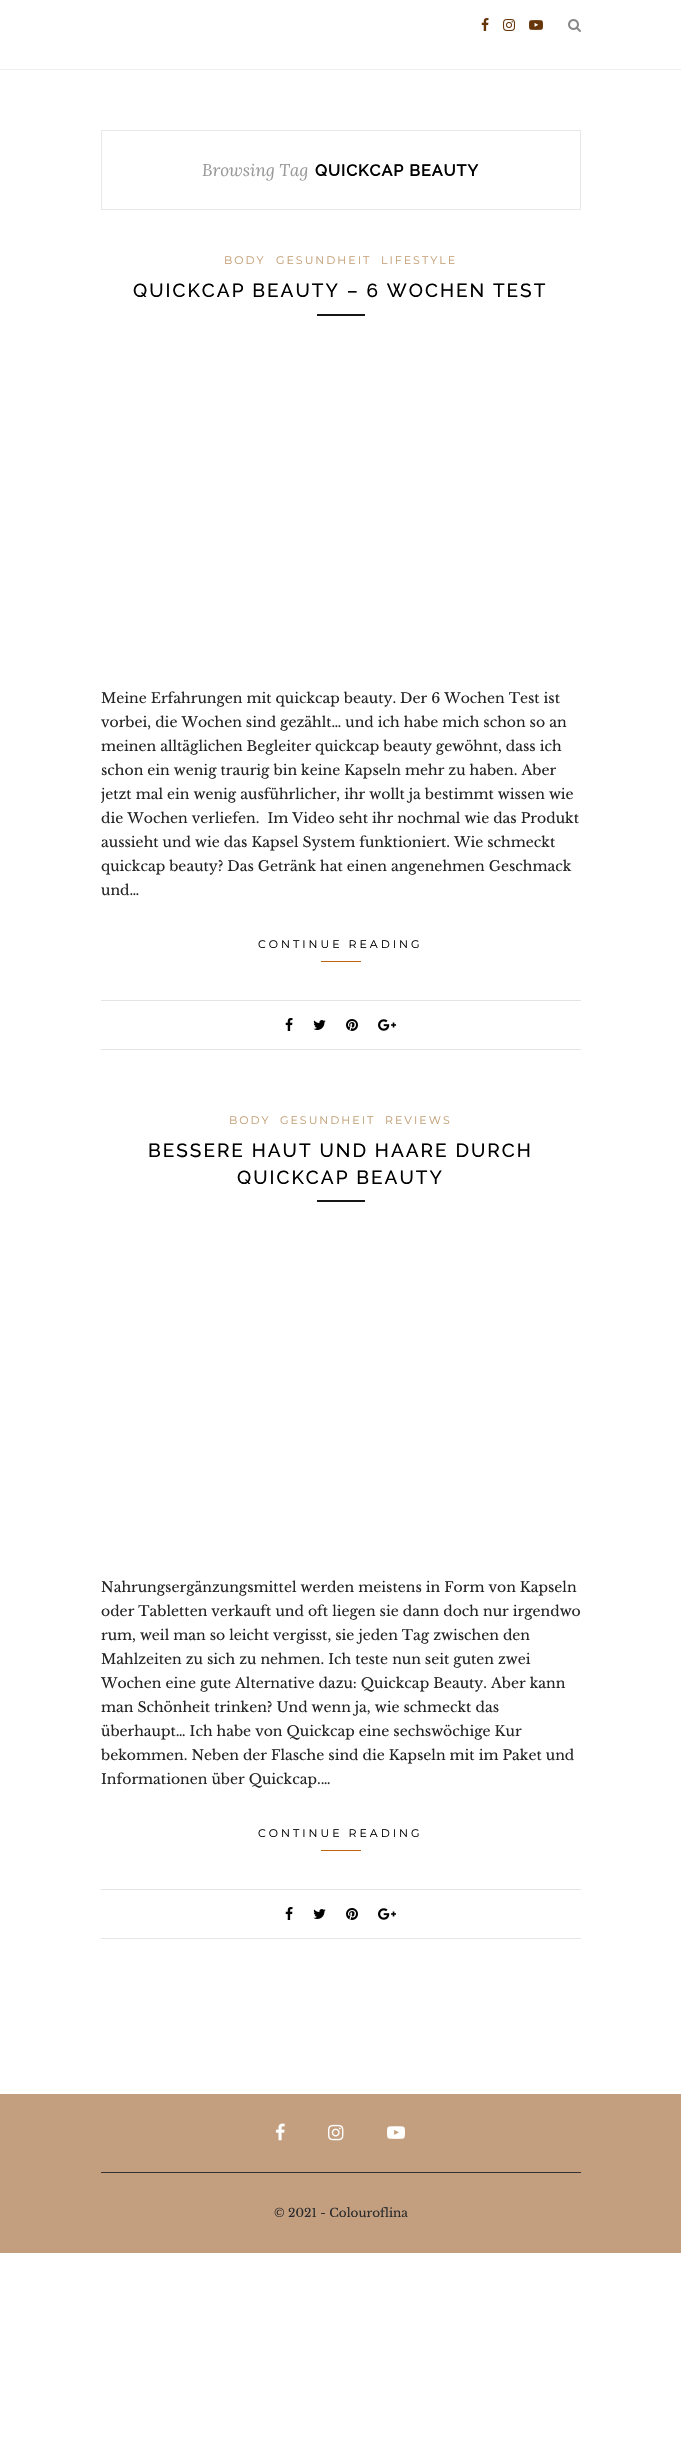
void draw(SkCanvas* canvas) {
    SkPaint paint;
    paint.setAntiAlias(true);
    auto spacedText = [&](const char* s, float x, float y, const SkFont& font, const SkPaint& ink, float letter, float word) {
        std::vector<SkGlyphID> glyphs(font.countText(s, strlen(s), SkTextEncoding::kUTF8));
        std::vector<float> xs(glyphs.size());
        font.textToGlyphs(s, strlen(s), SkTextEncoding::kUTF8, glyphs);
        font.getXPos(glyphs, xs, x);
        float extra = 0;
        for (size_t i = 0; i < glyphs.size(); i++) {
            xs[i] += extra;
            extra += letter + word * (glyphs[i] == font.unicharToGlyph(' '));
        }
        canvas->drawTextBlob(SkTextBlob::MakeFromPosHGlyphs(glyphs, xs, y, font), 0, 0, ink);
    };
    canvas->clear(0xFFFFFFFF);
    canvas->drawImageRect(SkImages::DeferredFromEncodedData(SkData::MakeFromFileName("img1.png")), SkRect::MakeXYWH(481, 18, 8, 13), SkSamplingOptions());
    canvas->drawImageRect(SkImages::DeferredFromEncodedData(SkData::MakeFromFileName("img2.png")), SkRect::MakeXYWH(503, 19, 12, 12), SkSamplingOptions());
    canvas->drawImageRect(SkImages::DeferredFromEncodedData(SkData::MakeFromFileName("img3.png")), SkRect::MakeXYWH(529, 20, 14, 10), SkSamplingOptions());
    canvas->drawImageRect(SkImages::DeferredFromEncodedData(SkData::MakeFromFileName("img4.png")), SkRect::MakeXYWH(568, 19, 13, 13), SkSamplingOptions());
    paint.setColor(0xFFEEEEEE);
    canvas->drawRect(SkRect::MakeXYWH(0, 69, 681, 1), paint);
    paint.setStyle(SkPaint::kStroke_Style);
    paint.setStrokeWidth(1);
    paint.setColor(0xFFE8E8E8);
    canvas->drawRect(SkRect::MakeXYWH(101.5f, 130.5f, 479, 79), paint);
    SkFont font1(fontMgr->matchFamilyStyle("Lora", SkFontStyle::Italic()), 17);
    font1.setSubpixel(true);
    paint.setStyle(SkPaint::kFill_Style);
    paint.setColor(0xFF999999);
    canvas->drawString("Browsing Tag", 202, 176, font1, paint);
    SkFont font2(fontMgr->matchFamilyStyle("Raleway", SkFontStyle::Bold()), 16);
    font2.setSubpixel(true);
    paint.setColor(0xFF000000);
    spacedText("QUICKCAP BEAUTY", 315, 176, font2, paint, 1, 0);
    SkFont font3(fontMgr->matchFamilyStyle("Montserrat", SkFontStyle::Normal()), 11);
    font3.setSubpixel(true);
    paint.setColor(0xFFC39F76);
    spacedText("BODY", 224, 264, font3, paint, 2, 0);
    spacedText("GESUNDHEIT", 276, 264, font3, paint, 2, 0);
    spacedText("LIFESTYLE", 381, 264, font3, paint, 2, 0);
    SkFont font4(fontMgr->matchFamilyStyle("Raleway", SkFontStyle(100, SkFontStyle::kNormal_Width, SkFontStyle::kUpright_Slant)), 19);
    font4.setSubpixel(true);
    paint.setColor(0xFF000000);
    spacedText("QUICKCAP BEAUTY – 6 WOCHEN TEST", 133, 297, font4, paint, 2, 0);
    paint.setColor(0xFF161616);
    canvas->drawRect(SkRect::MakeXYWH(317, 314, 48, 2), paint);
    SkFont font5(fontMgr->matchFamilyStyle("Libre Baskerville", SkFontStyle::Normal()), 14);
    font5.setSubpixel(true);
    paint.setColor(0xFF242424);
    canvas->drawString("Meine Erfahrungen mit quickcap beauty. Der 6 Wochen Test ist", 101, 703, font5, paint);
    canvas->drawString("vorbei, die Wochen sind gezählt… und ich habe mich schon so an", 101, 727, font5, paint);
    canvas->drawString("meinen alltäglichen Begleiter quickcap beauty gewöhnt, dass ich", 101, 751, font5, paint);
    canvas->drawString("schon ein wenig traurig bin keine Kapseln mehr zu haben. Aber", 101, 775, font5, paint);
    canvas->save();
    canvas->clipRect(SkRect::MakeXYWH(101, 130, 480, 1914));
    canvas->drawString("jetzt mal ein wenig ausführlicher, ihr wollt ja bestimmt wissen wie", 101, 799, font5, paint);
    canvas->restore();
    canvas->drawString("die Wochen verliefen.  Im Video seht ihr nochmal wie das Produkt", 101, 823, font5, paint);
    canvas->drawString("aussieht und wie das Kapsel System funktioniert. Wie schmeckt", 101, 847, font5, paint);
    canvas->drawString("quickcap beauty? Das Getränk hat einen angenehmen Geschmack", 101, 871, font5, paint);
    canvas->drawString("und…", 101, 895, font5, paint);
    paint.setColor(0xFF000000);
    spacedText("CONTINUE READING", 258, 948, font3, paint, 3, 0);
    paint.setColor(0xFFC1620F);
    canvas->drawRect(SkRect::MakeXYWH(321, 961, 40, 1), paint);
    paint.setColor(0xFFE5E5E5);
    canvas->drawRect(SkRect::MakeXYWH(101, 1000, 480, 1), paint);
    canvas->drawRect(SkRect::MakeXYWH(101, 1049, 480, 1), paint);
    canvas->drawImageRect(SkImages::DeferredFromEncodedData(SkData::MakeFromFileName("img5.png")), SkRect::MakeXYWH(285, 1018, 8, 13), SkSamplingOptions());
    canvas->drawImageRect(SkImages::DeferredFromEncodedData(SkData::MakeFromFileName("img6.png")), SkRect::MakeXYWH(313, 1020, 13, 10), SkSamplingOptions());
    canvas->drawImageRect(SkImages::DeferredFromEncodedData(SkData::MakeFromFileName("img7.png")), SkRect::MakeXYWH(346, 1019, 12, 12), SkSamplingOptions());
    canvas->drawImageRect(SkImages::DeferredFromEncodedData(SkData::MakeFromFileName("img8.png")), SkRect::MakeXYWH(378, 1019, 18, 12), SkSamplingOptions());
    paint.setColor(0xFFC39F76);
    spacedText("BODY", 229, 1124, font3, paint, 2, 0);
    spacedText("GESUNDHEIT", 280, 1124, font3, paint, 2, 0);
    spacedText("REVIEWS", 385, 1124, font3, paint, 2, 0);
    paint.setColor(0xFF000000);
    spacedText("BESSERE HAUT UND HAARE DURCH", 148, 1157, font4, paint, 2, 0);
    spacedText("QUICKCAP BEAUTY", 237, 1184, font4, paint, 2, 0);
    paint.setColor(0xFF161616);
    canvas->drawRect(SkRect::MakeXYWH(317, 1200, 48, 2), paint);
    paint.setColor(0xFF242424);
    canvas->drawString("Nahrungsergänzungsmittel werden meistens in Form von Kapseln", 101, 1592, font5, paint);
    canvas->drawString("oder Tabletten verkauft und oft liegen sie dann doch nur irgendwo", 101, 1616, font5, paint);
    canvas->drawString("rum, weil man so leicht vergisst, sie jeden Tag zwischen den", 101, 1640, font5, paint);
    canvas->drawString("Mahlzeiten zu sich zu nehmen. Ich teste nun seit guten zwei", 101, 1664, font5, paint);
    canvas->drawString("Wochen eine gute Alternative dazu: Quickcap Beauty. Aber kann", 101, 1688, font5, paint);
    canvas->drawString("man Schönheit trinken? Und wenn ja, wie schmeckt das", 101, 1712, font5, paint);
    canvas->drawString("überhaupt… Ich habe von Quickcap eine sechswöchige Kur", 101, 1736, font5, paint);
    canvas->drawString("bekommen. Neben der Flasche sind die Kapseln mit im Paket und", 101, 1760, font5, paint);
    canvas->drawString("Informationen über Quickcap.…", 101, 1784, font5, paint);
    paint.setColor(0xFF000000);
    spacedText("CONTINUE READING", 258, 1837, font3, paint, 3, 0);
    paint.setColor(0xFFC1620F);
    canvas->drawRect(SkRect::MakeXYWH(321, 1850, 40, 1), paint);
    paint.setColor(0xFFE5E5E5);
    canvas->drawRect(SkRect::MakeXYWH(101, 1889, 480, 1), paint);
    canvas->drawRect(SkRect::MakeXYWH(101, 1938, 480, 1), paint);
    canvas->drawImageRect(SkImages::DeferredFromEncodedData(SkData::MakeFromFileName("img5.png")), SkRect::MakeXYWH(285, 1907, 8, 13), SkSamplingOptions());
    canvas->drawImageRect(SkImages::DeferredFromEncodedData(SkData::MakeFromFileName("img6.png")), SkRect::MakeXYWH(313, 1909, 13, 10), SkSamplingOptions());
    canvas->drawImageRect(SkImages::DeferredFromEncodedData(SkData::MakeFromFileName("img7.png")), SkRect::MakeXYWH(346, 1908, 12, 12), SkSamplingOptions());
    canvas->drawImageRect(SkImages::DeferredFromEncodedData(SkData::MakeFromFileName("img8.png")), SkRect::MakeXYWH(378, 1908, 18, 12), SkSamplingOptions());
    paint.setColor(0xFFC39F80);
    canvas->drawRect(SkRect::MakeXYWH(0, 2094, 681, 159), paint);
    paint.setColor(0xFF313131);
    canvas->drawRect(SkRect::MakeXYWH(101, 2172, 480, 1), paint);
    canvas->drawImageRect(SkImages::DeferredFromEncodedData(SkData::MakeFromFileName("img9.png")), SkRect::MakeXYWH(275, 2123, 10, 18), SkSamplingOptions());
    canvas->drawImageRect(SkImages::DeferredFromEncodedData(SkData::MakeFromFileName("img10.png")), SkRect::MakeXYWH(328, 2124, 16, 17), SkSamplingOptions());
    canvas->drawImageRect(SkImages::DeferredFromEncodedData(SkData::MakeFromFileName("img11.png")), SkRect::MakeXYWH(387, 2126, 18, 13), SkSamplingOptions());
    SkFont font6(fontMgr->matchFamilyStyle("Libre Baskerville", SkFontStyle::Normal()), 12);
    font6.setSubpixel(true);
    paint.setColor(0xFF2B2B2B);
    canvas->drawString("© 2021 - Colouroflina", 274, 2217, font6, paint);
}
